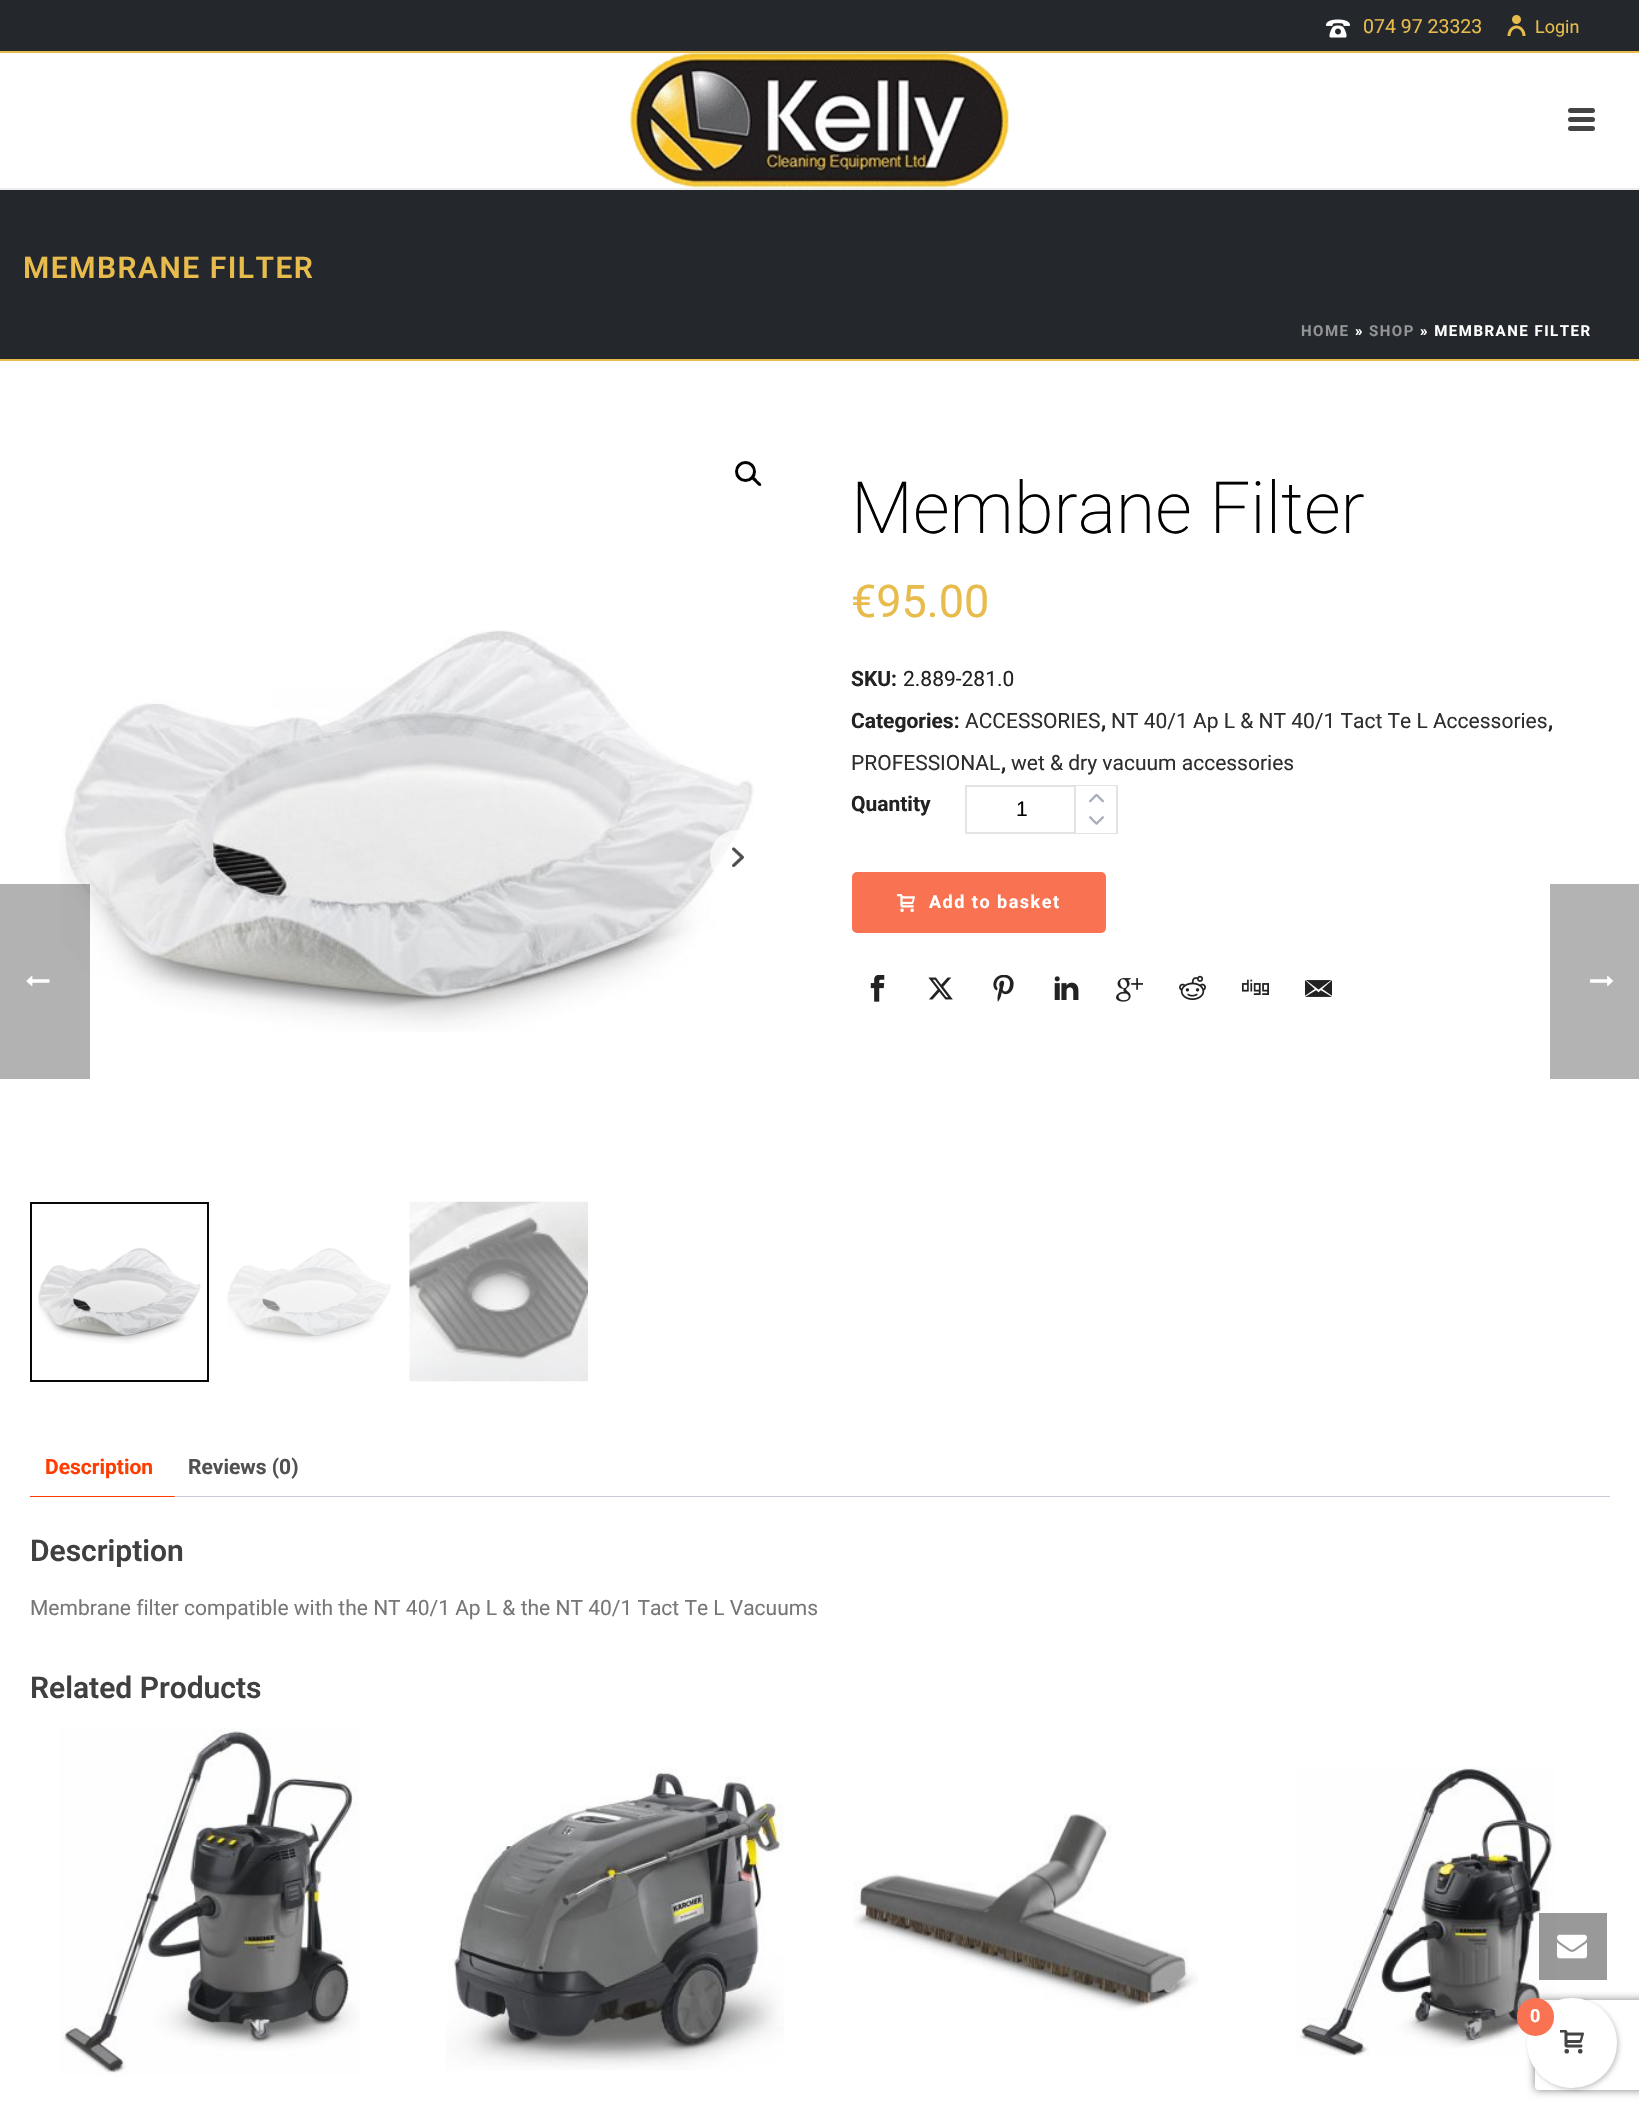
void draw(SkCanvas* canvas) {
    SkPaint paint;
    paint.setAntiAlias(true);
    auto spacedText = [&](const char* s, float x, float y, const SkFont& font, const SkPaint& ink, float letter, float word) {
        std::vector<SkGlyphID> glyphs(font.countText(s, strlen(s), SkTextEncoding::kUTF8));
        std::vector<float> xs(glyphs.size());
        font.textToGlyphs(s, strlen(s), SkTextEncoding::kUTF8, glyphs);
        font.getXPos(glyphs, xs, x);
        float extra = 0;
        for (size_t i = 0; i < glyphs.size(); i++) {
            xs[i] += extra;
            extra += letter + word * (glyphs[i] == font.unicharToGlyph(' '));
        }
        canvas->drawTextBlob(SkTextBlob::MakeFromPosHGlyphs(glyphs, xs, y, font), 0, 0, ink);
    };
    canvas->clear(0xFFFFFFFF);
    paint.setColor(0xFF24282D);
    canvas->drawRect(SkRect::MakeXYWH(0, 190, 1639, 169), paint);
    paint.setColor(0xFFE8BC4C);
    canvas->drawRect(SkRect::MakeXYWH(0, 359, 1639, 2), paint);
    paint.setColor(0xFF24282D);
    canvas->drawRect(SkRect::MakeXYWH(0, 0, 1639, 51), paint);
    paint.setColor(0xFFE8BC4C);
    canvas->drawRect(SkRect::MakeXYWH(0, 51, 1639, 2), paint);
    canvas->drawImageRect(SkImages::DeferredFromEncodedData(SkData::MakeFromFileName("img1.png")), SkRect::MakeXYWH(1326, 19, 24, 19), SkSamplingOptions());
    SkFont font1(fontMgr->matchFamilyStyle("Roboto", SkFontStyle::Normal()), 19.5f);
    font1.setSubpixel(true);
    canvas->drawString("074 97 23323", 1363, 33, font1, paint);
    canvas->drawImageRect(SkImages::DeferredFromEncodedData(SkData::MakeFromFileName("img2.png")), SkRect::MakeXYWH(1507, 15, 19, 21), SkSamplingOptions());
    SkFont font2(fontMgr->matchFamilyStyle("Roboto", SkFontStyle::Normal()), 18);
    font2.setSubpixel(true);
    canvas->drawString("Login", 1535, 33, font2, paint);
    paint.setColor(0xFFEDEDED);
    canvas->drawRect(SkRect::MakeXYWH(0, 188, 1639, 2), paint);
    canvas->drawImageRect(SkImages::DeferredFromEncodedData(SkData::MakeFromFileName("img3.png")), SkRect::MakeXYWH(630, 53, 379, 135), SkSamplingOptions());
    paint.setColor(0xFF444444);
    canvas->drawRoundRect(SkRect::MakeXYWH(1568, 108, 27, 5), 2.5f, 2.5f, paint);
    canvas->drawRoundRect(SkRect::MakeXYWH(1568, 117, 27, 5), 2.5f, 2.5f, paint);
    canvas->drawRoundRect(SkRect::MakeXYWH(1568, 126, 27, 5), 2.5f, 2.5f, paint);
    SkFont font3(fontMgr->matchFamilyStyle("Roboto", SkFontStyle(600, SkFontStyle::kNormal_Width, SkFontStyle::kUpright_Slant)), 30);
    font3.setSubpixel(true);
    paint.setColor(0xFFE8BC4C);
    spacedText("MEMBRANE FILTER", 23, 278, font3, paint, 1.5f, 0);
    SkFont font4(fontMgr->matchFamilyStyle("Roboto", SkFontStyle::Bold()), 15);
    font4.setSubpixel(true);
    paint.setColor(0xFF929496);
    spacedText("HOME", 1301, 336, font4, paint, 1.5f, 0);
    paint.setColor(0xFFFFFFFF);
    spacedText("»", 1355, 336, font4, paint, 1.5f, 0);
    paint.setColor(0xFF929496);
    spacedText("SHOP", 1369, 336, font4, paint, 1.5f, 0);
    paint.setColor(0xFFFFFFFF);
    spacedText("» MEMBRANE FILTER", 1420, 336, font4, paint, 1.5f, 0);
    paint.setStyle(SkPaint::kStroke_Style);
    paint.setStrokeWidth(3);
    paint.setColor(0xFF000000);
    canvas->drawCircle(745.5f, 471.5f, 9, paint);
    paint.setStyle(SkPaint::kFill_Style);
    canvas->drawPath(SkPathBuilder().moveTo(752.5f, 477.5f).cubicTo(754, 475.5f, 757, 479.5f, 757.5f, 480.5f).cubicTo(758.5f, 481.5f, 762.5f, 484, 761, 485.5f).cubicTo(759, 487.5f, 756.5f, 483.5f, 755.5f, 482.5f).cubicTo(754.5f, 481.5f, 750.5f, 479, 752.5f, 477.5f).close().detach(), paint);
    canvas->drawImageRect(SkImages::DeferredFromEncodedData(SkData::MakeFromFileName("img4.png")), SkRect::MakeXYWH(60, 630, 694, 402), SkSamplingOptions());
    paint.setColor(0xB3FFFFFF);
    canvas->drawCircle(737.5f, 857.5f, 27.5f, paint);
    canvas->drawImageRect(SkImages::DeferredFromEncodedData(SkData::MakeFromFileName("img5.png")), SkRect::MakeXYWH(732, 847, 12, 20), SkSamplingOptions());
    canvas->drawImageRect(SkImages::DeferredFromEncodedData(SkData::MakeFromFileName("img6.png")), SkRect::MakeXYWH(38, 1247, 163, 97), SkSamplingOptions());
    paint.setStyle(SkPaint::kStroke_Style);
    paint.setStrokeWidth(2);
    paint.setColor(0xFF080707);
    canvas->drawRect(SkRect::MakeXYWH(31, 1203, 177, 178), paint);
    canvas->drawImageRect(SkImages::DeferredFromEncodedData(SkData::MakeFromFileName("img7.png")), SkRect::MakeXYWH(227, 1248, 164, 95), SkSamplingOptions());
    canvas->drawImageRect(SkImages::DeferredFromEncodedData(SkData::MakeFromFileName("img8.png")), SkRect::MakeXYWH(409, 1201, 179, 181), SkSamplingOptions());
    SkFont font5(fontMgr->matchFamilyStyle("Roboto", SkFontStyle(200, SkFontStyle::kNormal_Width, SkFontStyle::kUpright_Slant)), 72);
    font5.setSubpixel(true);
    paint.setStyle(SkPaint::kFill_Style);
    paint.setColor(0xFF000000);
    canvas->drawString("Membrane Filter", 851, 533, font5, paint);
    SkFont font6(fontMgr->matchFamilyStyle("Roboto", SkFontStyle::Normal()), 45);
    font6.setSubpixel(true);
    paint.setColor(0xFFE8BC4C);
    canvas->drawString("€95.00", 851, 617, font6, paint);
    SkFont font7(fontMgr->matchFamilyStyle("Roboto", SkFontStyle::Bold()), 21);
    font7.setSubpixel(true);
    paint.setColor(0xFF222222);
    canvas->drawString("SKU:", 851, 686, font7, paint);
    SkFont font8(fontMgr->matchFamilyStyle("Roboto", SkFontStyle::Normal()), 21);
    font8.setSubpixel(true);
    canvas->drawString("2.889-281.0", 903, 686, font8, paint);
    canvas->drawString("Categories:", 851, 728, font7, paint);
    paint.setColor(0xFF2E2E2E);
    canvas->drawString("ACCESSORIES", 965, 728, font8, paint);
    paint.setColor(0xFF222222);
    canvas->drawString(",", 1101, 728, font7, paint);
    paint.setColor(0xFF2E2E2E);
    canvas->drawString("NT 40/1 Ap L & NT 40/1 Tact Te L Accessories", 1111, 728, font8, paint);
    paint.setColor(0xFF222222);
    canvas->drawString(",", 1548, 728, font7, paint);
    paint.setColor(0xFF2E2E2E);
    canvas->drawString("PROFESSIONAL", 851, 770, font8, paint);
    paint.setColor(0xFF222222);
    canvas->drawString(",", 1001, 770, font7, paint);
    paint.setColor(0xFF2E2E2E);
    canvas->drawString("wet & dry vacuum accessories", 1011, 770, font8, paint);
    paint.setColor(0xFF222222);
    canvas->drawString("Quantity", 851, 811, font7, paint);
    paint.setStyle(SkPaint::kStroke_Style);
    paint.setColor(0xFFE3E3E3);
    canvas->drawRect(SkRect::MakeXYWH(966, 786, 151, 47), paint);
    SkFont font9(fontMgr->matchFamilyStyle("Liberation Sans", SkFontStyle::Normal()), 21);
    font9.setSubpixel(true);
    paint.setStyle(SkPaint::kFill_Style);
    paint.setColor(0xFF000000);
    canvas->drawString("1", 1016, 816, font9, paint);
    paint.setColor(0xFFFFFFFF);
    canvas->drawRect(SkRect::MakeXYWH(1076, 786, 40, 1), paint);
    paint.setColor(0xFFE3E3E3);
    canvas->drawRect(SkRect::MakeXYWH(1074, 786, 2, 47), paint);
    canvas->drawImageRect(SkImages::DeferredFromEncodedData(SkData::MakeFromFileName("img9.png")), SkRect::MakeXYWH(1089, 794, 15, 9), SkSamplingOptions());
    paint.setColor(0xFFFFFFFF);
    canvas->drawRect(SkRect::MakeXYWH(1076, 832, 40, 1), paint);
    canvas->drawImageRect(SkImages::DeferredFromEncodedData(SkData::MakeFromFileName("img10.png")), SkRect::MakeXYWH(1089, 816, 15, 9), SkSamplingOptions());
    paint.setColor(0xFFF97352);
    canvas->drawRoundRect(SkRect::MakeXYWH(852, 872, 254, 61), 5, 5, paint);
    canvas->drawImageRect(SkImages::DeferredFromEncodedData(SkData::MakeFromFileName("img11.png")), SkRect::MakeXYWH(897, 894, 18, 18), SkSamplingOptions());
    SkFont font10(fontMgr->matchFamilyStyle("Roboto", SkFontStyle::Bold()), 18);
    font10.setSubpixel(true);
    paint.setColor(0xFFFFFFFF);
    spacedText("Add to basket", 929, 908, font10, paint, 1.5f, 0);
    canvas->drawImageRect(SkImages::DeferredFromEncodedData(SkData::MakeFromFileName("img12.png")), SkRect::MakeXYWH(870, 975, 15, 27), SkSamplingOptions());
    canvas->drawImageRect(SkImages::DeferredFromEncodedData(SkData::MakeFromFileName("img13.png")), SkRect::MakeXYWH(928, 977, 25, 23), SkSamplingOptions());
    canvas->drawImageRect(SkImages::DeferredFromEncodedData(SkData::MakeFromFileName("img14.png")), SkRect::MakeXYWH(993, 975, 21, 27), SkSamplingOptions());
    canvas->drawImageRect(SkImages::DeferredFromEncodedData(SkData::MakeFromFileName("img15.png")), SkRect::MakeXYWH(1054, 976, 25, 24), SkSamplingOptions());
    canvas->drawImageRect(SkImages::DeferredFromEncodedData(SkData::MakeFromFileName("img16.png")), SkRect::MakeXYWH(1116, 978, 27, 24), SkSamplingOptions());
    canvas->drawImageRect(SkImages::DeferredFromEncodedData(SkData::MakeFromFileName("img17.png")), SkRect::MakeXYWH(1179, 975, 27, 26), SkSamplingOptions());
    canvas->drawImageRect(SkImages::DeferredFromEncodedData(SkData::MakeFromFileName("img18.png")), SkRect::MakeXYWH(1242, 979, 27, 16), SkSamplingOptions());
    canvas->drawImageRect(SkImages::DeferredFromEncodedData(SkData::MakeFromFileName("img19.png")), SkRect::MakeXYWH(1305, 980, 27, 17), SkSamplingOptions());
    canvas->save();
    canvas->clipRect(SkRect::MakeXYWH(30, 1439, 1580, 58));
    paint.setColor(0xFFFF3D00);
    canvas->drawPath(SkPathBuilder().moveTo(176, 1497).lineTo(22, 1497).lineTo(24, 1496).lineTo(174, 1496).close().detach(), paint);
    canvas->restore();
    canvas->drawString("Description", 45, 1474, font7, paint);
    paint.setColor(0xFF515151);
    canvas->drawString("Reviews (0)", 188, 1474, font7, paint);
    paint.setColor(0xFFCFC8D8);
    canvas->drawRect(SkRect::MakeXYWH(176, 1496, 1434, 1), paint);
    paint.setColor(0xFF404040);
    canvas->drawString("Description", 30, 1561, font3, paint);
    paint.setColor(0xFF777777);
    canvas->drawString("Membrane filter compatible with the NT 40/1 Ap L & the NT 40/1 Tact Te L Vacuums", 30, 1615, font8, paint);
    paint.setColor(0xFF404040);
    canvas->drawString("Related Products", 30, 1698, font3, paint);
    canvas->drawImageRect(SkImages::DeferredFromEncodedData(SkData::MakeFromFileName("img20.png")), SkRect::MakeXYWH(60, 1728, 300, 347), SkSamplingOptions());
    canvas->drawImageRect(SkImages::DeferredFromEncodedData(SkData::MakeFromFileName("img21.png")), SkRect::MakeXYWH(446, 1767, 338, 303), SkSamplingOptions());
    canvas->drawImageRect(SkImages::DeferredFromEncodedData(SkData::MakeFromFileName("img22.png")), SkRect::MakeXYWH(853, 1814, 345, 203), SkSamplingOptions());
    canvas->drawImageRect(SkImages::DeferredFromEncodedData(SkData::MakeFromFileName("img23.png")), SkRect::MakeXYWH(1296, 1767, 259, 289), SkSamplingOptions());
    paint.setColor(0x4D000000);
    canvas->drawRect(SkRect::MakeXYWH(0, 884, 90, 195), paint);
    canvas->drawImageRect(SkImages::DeferredFromEncodedData(SkData::MakeFromFileName("img24.png")), SkRect::MakeXYWH(26, 976, 24, 10), SkSamplingOptions());
    paint.setColor(0xFFB3B3B3);
    canvas->drawRect(SkRect::MakeXYWH(1550, 884, 89, 195), paint);
    canvas->drawImageRect(SkImages::DeferredFromEncodedData(SkData::MakeFromFileName("img25.png")), SkRect::MakeXYWH(1590, 976, 23, 11), SkSamplingOptions());
    canvas->save();
    canvas->clipPath(SkPathBuilder(SkPathFillType::kEvenOdd).moveTo(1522, 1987).lineTo(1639, 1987).lineTo(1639, 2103).lineTo(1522, 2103).close().moveTo(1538, 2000).lineTo(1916, 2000).cubicTo(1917.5f, 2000, 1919, 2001.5f, 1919, 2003).lineTo(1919, 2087).cubicTo(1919, 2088.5f, 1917.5f, 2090, 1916, 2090).lineTo(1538, 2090).cubicTo(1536.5f, 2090, 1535, 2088.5f, 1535, 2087).lineTo(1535, 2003).cubicTo(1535, 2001.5f, 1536.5f, 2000, 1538, 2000).close().detach(), true);
    paint.setColor(0xFF808080);
    paint.setMaskFilter(SkMaskFilter::MakeBlur(kNormal_SkBlurStyle, 4));
    canvas->drawRoundRect(SkRect::MakeXYWH(1535, 2000, 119, 90), 3, 3, paint);
    paint.setMaskFilter(nullptr);
    canvas->restore();
    paint.setColor(0x66000000);
    canvas->drawRect(SkRect::MakeXYWH(1539, 1913, 68, 67), paint);
    canvas->drawImageRect(SkImages::DeferredFromEncodedData(SkData::MakeFromFileName("img26.png")), SkRect::MakeXYWH(1557, 1934, 30, 25), SkSamplingOptions());
    paint.setColor(0x33000000);
    paint.setMaskFilter(SkMaskFilter::MakeBlur(kNormal_SkBlurStyle, 2));
    canvas->drawRoundRect(SkRect::MakeXYWH(1529, 2000, 90, 90), 45, 45, paint);
    paint.setMaskFilter(nullptr);
    paint.setColor(0xFFFFFFFF);
    canvas->drawCircle(1572, 2043, 45, paint);
    paint.setColor(0xFFF97352);
    canvas->drawRoundRect(SkRect::MakeXYWH(1517, 1998, 37, 38), 18.5f, 18.5f, paint);
    paint.setColor(0xFFFFFFFF);
    canvas->drawString("0", 1530, 2022, font10, paint);
    canvas->drawImageRect(SkImages::DeferredFromEncodedData(SkData::MakeFromFileName("img27.png")), SkRect::MakeXYWH(1560, 2030, 24, 24), SkSamplingOptions());
}
